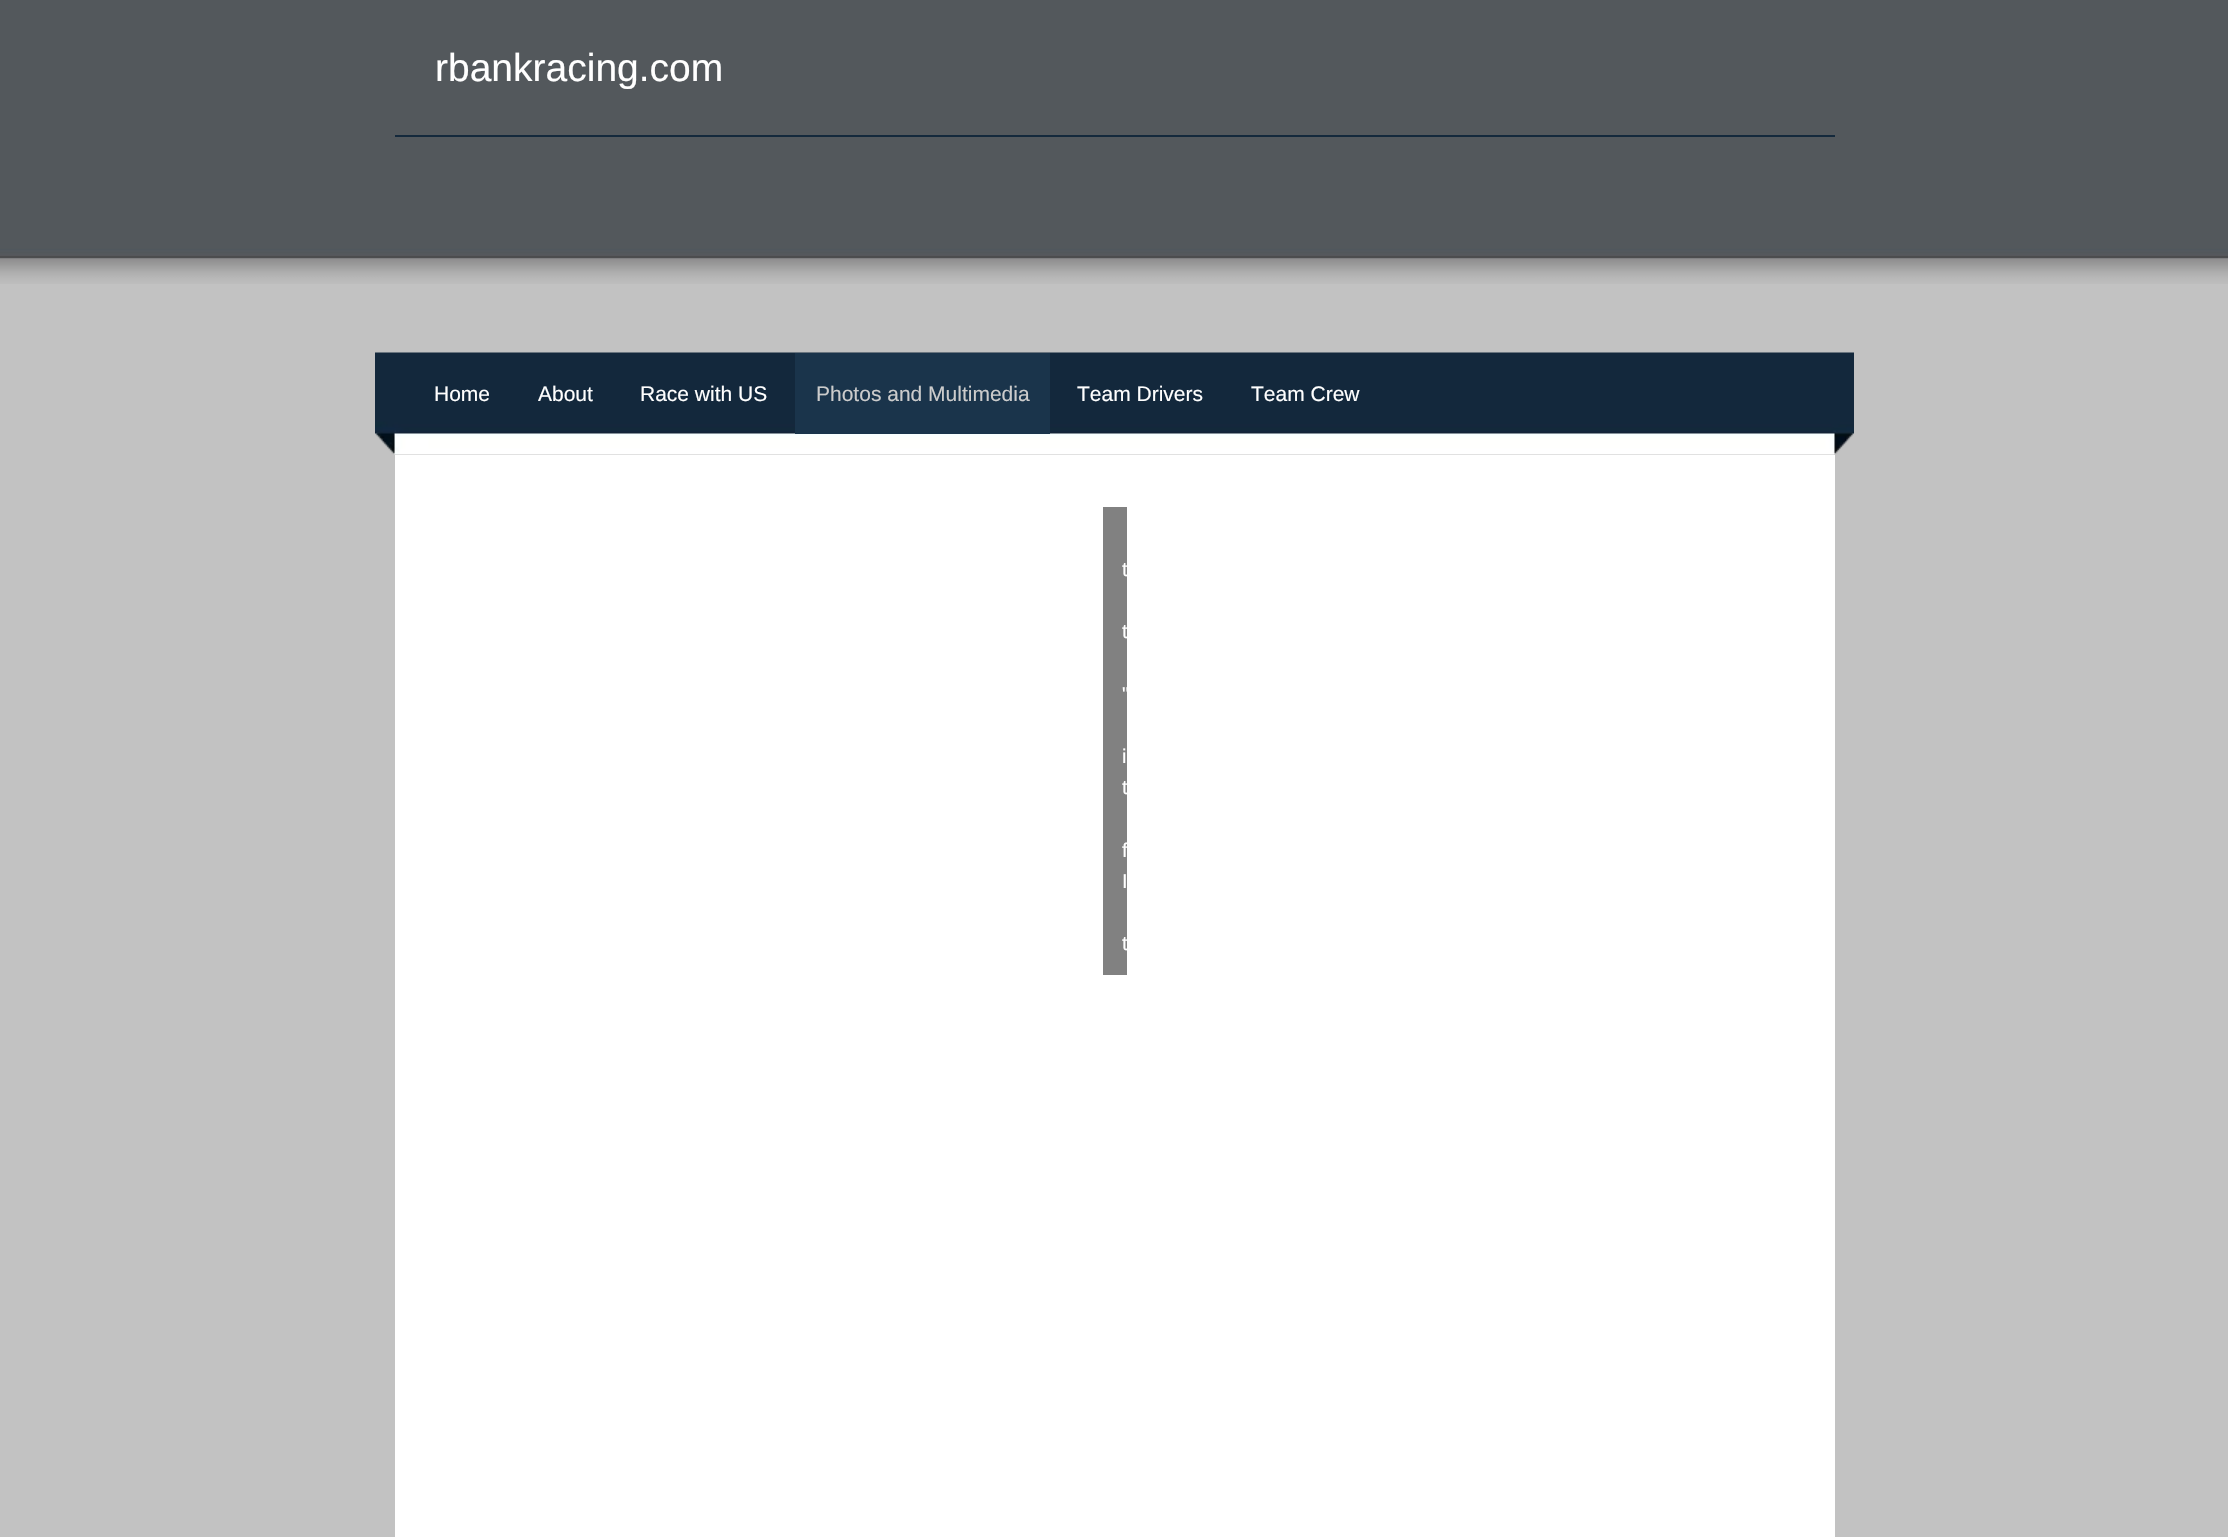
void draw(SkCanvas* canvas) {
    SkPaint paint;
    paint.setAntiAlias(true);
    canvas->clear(0xFFC2C2C2);
    paint.setColor(0xFF53585C);
    canvas->drawRect(SkRect::MakeXYWH(0, 0, 2228, 135), paint);
    SkFont font1(fontMgr->matchFamilyStyle("Liberation Sans", SkFontStyle::Normal()), 39);
    font1.setSubpixel(true);
    paint.setColor(0xFFFFFFFF);
    canvas->drawString("rbankracing.com", 435, 81, font1, paint);
    canvas->drawImageRect(SkImages::DeferredFromEncodedData(SkData::MakeFromFileName("img1.png")), SkRect::MakeXYWH(0, 135, 2228, 149), SkSamplingOptions());
    paint.setColor(0xFF14293C);
    canvas->drawRect(SkRect::MakeXYWH(395, 135, 1440, 2), paint);
    canvas->drawImageRect(SkImages::DeferredFromEncodedData(SkData::MakeFromFileName("img2.png")), SkRect::MakeXYWH(375, 352, 1479, 103), SkSamplingOptions());
    SkFont font2(fontMgr->matchFamilyStyle("Liberation Sans", SkFontStyle::Normal()), 21);
    font2.setSubpixel(true);
    paint.setColor(0xFFFFFFFF);
    canvas->drawString("Home", 434, 401, font2, paint);
    canvas->drawString("About", 538, 401, font2, paint);
    canvas->drawString("Race with US", 640, 401, font2, paint);
    paint.setColor(0xFF1A344B);
    canvas->drawRect(SkRect::MakeXYWH(795, 353, 255, 81), paint);
    paint.setColor(0xFFCCCCCC);
    canvas->drawString("Photos and Multimedia", 816, 401, font2, paint);
    paint.setColor(0xFFFFFFFF);
    canvas->drawString("Team Drivers", 1077, 401, font2, paint);
    canvas->drawString("Team Crew", 1251, 401, font2, paint);
    canvas->drawRect(SkRect::MakeXYWH(395, 455, 1440, 1082), paint);
    paint.setColor(0xFF818181);
    canvas->drawRect(SkRect::MakeXYWH(1103, 507, 24, 468), paint);
    canvas->save();
    canvas->clipRect(SkRect::MakeXYWH(1103, 507, 24, 468));
    SkFont font3(fontMgr->matchFamilyStyle("Liberation Sans", SkFontStyle::Normal()), 20);
    font3.setSubpixel(true);
    paint.setColor(0xFFFFFFFF);
    canvas->drawString("t", 1122, 576, font3, paint);
    canvas->drawString("t", 1122, 638, font3, paint);
    canvas->drawString("\"", 1122, 701, font3, paint);
    canvas->restore();
    canvas->drawString("i", 1122, 763, font3, paint);
    canvas->save();
    canvas->clipRect(SkRect::MakeXYWH(1103, 507, 24, 468));
    canvas->drawString("t", 1122, 794, font3, paint);
    canvas->drawString("f", 1122, 857, font3, paint);
    canvas->restore();
    canvas->drawString("I", 1122, 888, font3, paint);
    canvas->save();
    canvas->clipRect(SkRect::MakeXYWH(1103, 507, 24, 468));
    canvas->drawString("t", 1122, 950, font3, paint);
    canvas->restore();
}
